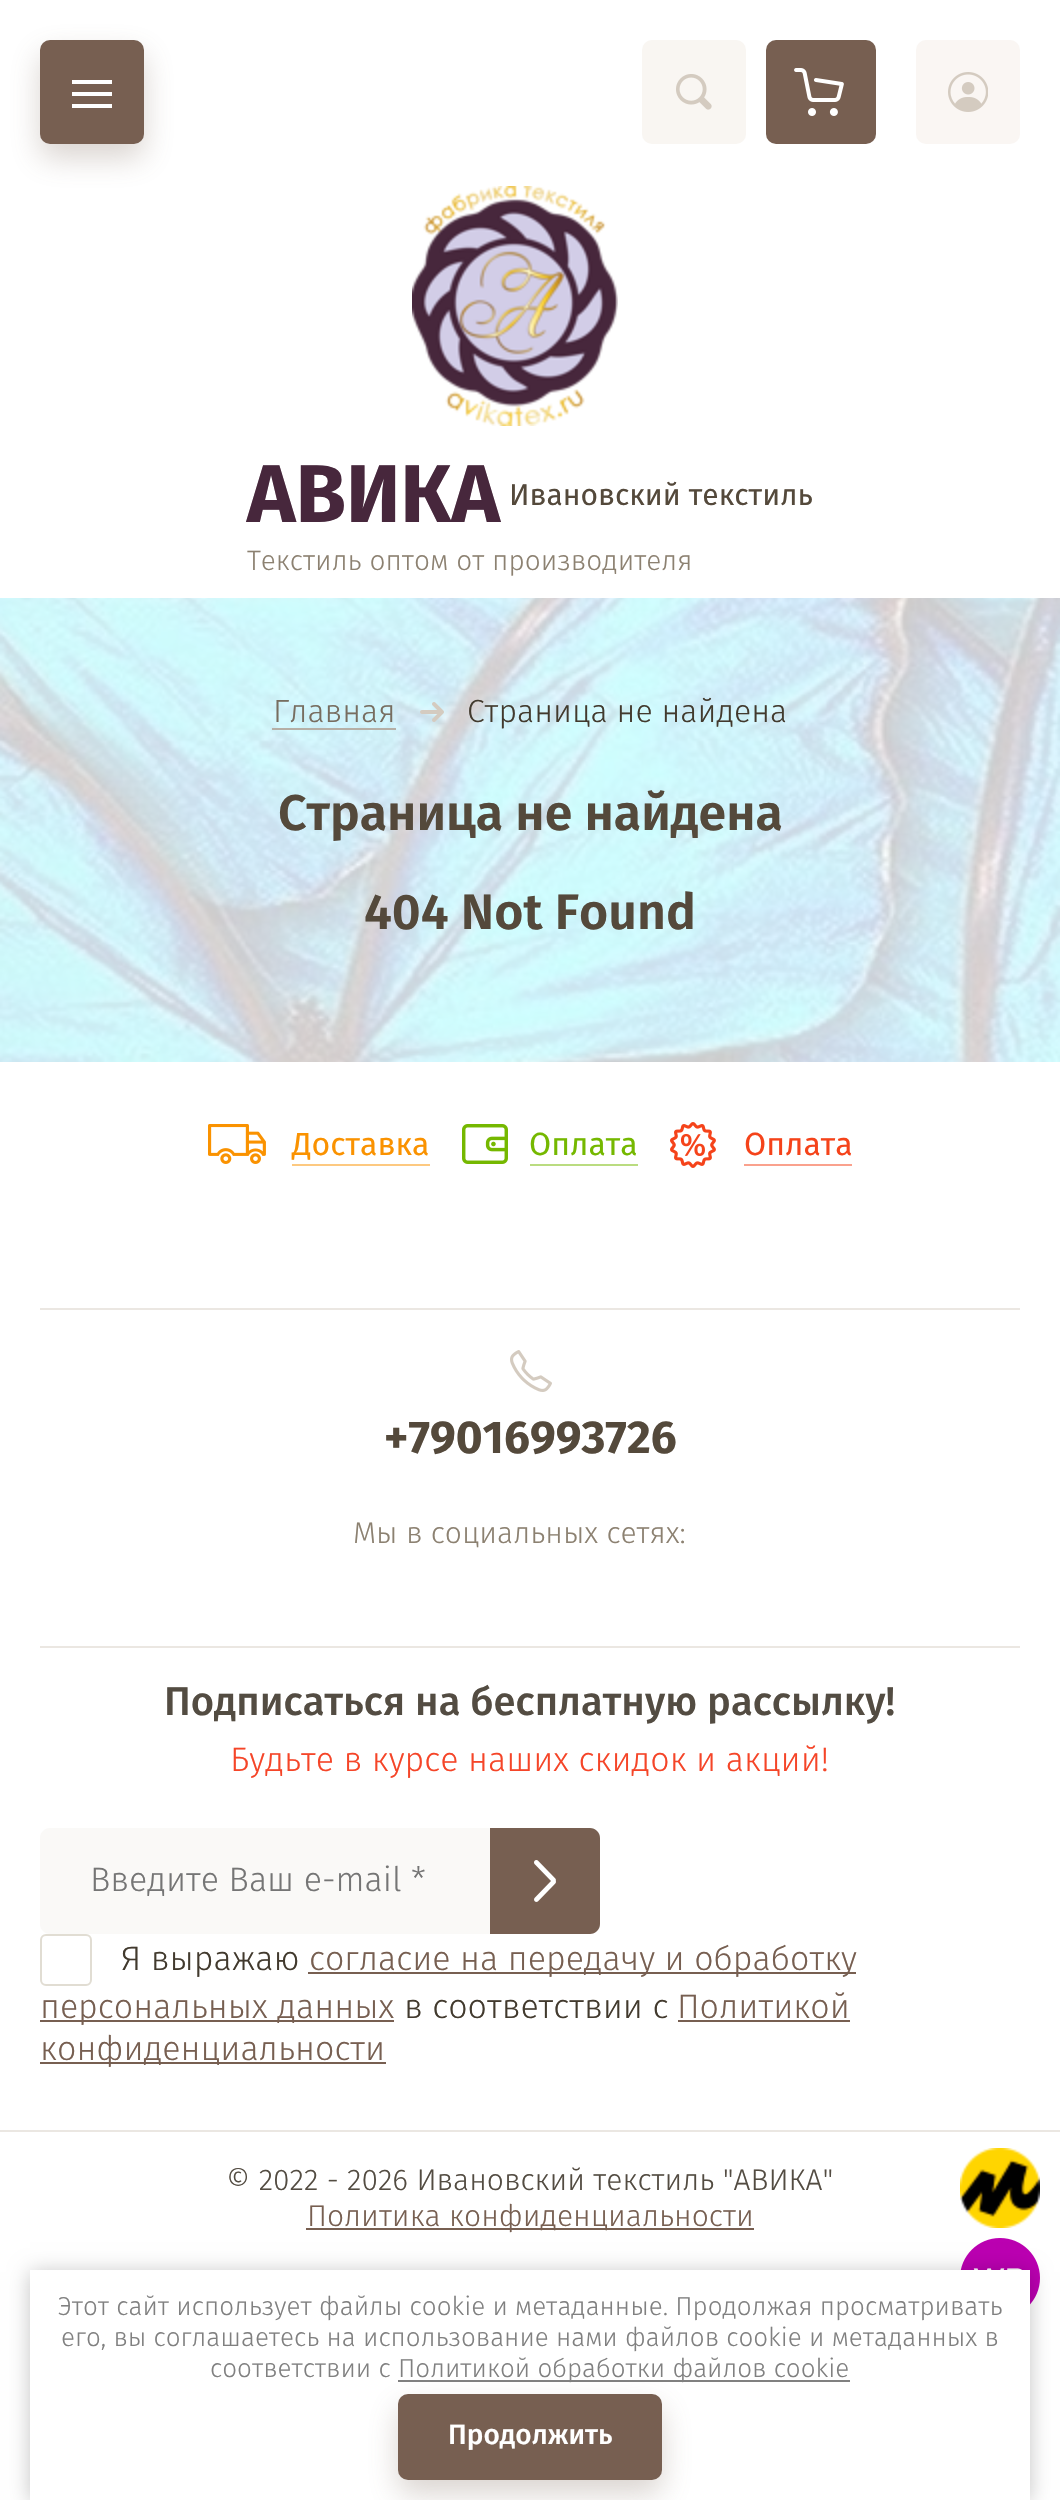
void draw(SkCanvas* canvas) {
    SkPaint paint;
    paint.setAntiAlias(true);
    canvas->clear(0xFFFFFFFF);
    paint.setColor(0x45775F51);
    paint.setMaskFilter(SkMaskFilter::MakeBlur(kNormal_SkBlurStyle, 15));
    canvas->drawRoundRect(SkRect::MakeXYWH(40, 54, 104, 104), 10, 10, paint);
    paint.setMaskFilter(nullptr);
    paint.setColor(0xFF775F51);
    canvas->drawRoundRect(SkRect::MakeXYWH(40, 40, 104, 104), 10, 10, paint);
    paint.setColor(0xFFFFFFFF);
    canvas->drawPath(SkPathBuilder(SkPathFillType::kEvenOdd).moveTo(72, 108).lineTo(72, 104).lineTo(112, 104).lineTo(112, 108).close().moveTo(72, 92).lineTo(112, 92).lineTo(112, 96).lineTo(72, 96).close().moveTo(72, 80).lineTo(112, 80).lineTo(112, 84).lineTo(72, 84).close().detach(), paint);
    paint.setColor(0xFFF9F6F2);
    canvas->drawRoundRect(SkRect::MakeXYWH(642, 40, 104, 104), 10, 10, paint);
    canvas->drawImageRect(SkImages::DeferredFromEncodedData(SkData::MakeFromFileName("img1.png")), SkRect::MakeXYWH(676, 74, 36, 36), SkSamplingOptions());
    paint.setColor(0xFF775F51);
    canvas->drawRoundRect(SkRect::MakeXYWH(766, 40, 110, 104), 10, 10, paint);
    canvas->drawImageRect(SkImages::DeferredFromEncodedData(SkData::MakeFromFileName("img2.png")), SkRect::MakeXYWH(794, 68, 50, 48), SkSamplingOptions());
    paint.setColor(0xFFFAF6F3);
    canvas->drawRoundRect(SkRect::MakeXYWH(916, 40, 104, 104), 10, 10, paint);
    canvas->drawImageRect(SkImages::DeferredFromEncodedData(SkData::MakeFromFileName("img3.png")), SkRect::MakeXYWH(948, 72, 40, 40), SkSamplingOptions());
    canvas->drawImageRect(SkImages::DeferredFromEncodedData(SkData::MakeFromFileName("img4.png")), SkRect::MakeXYWH(412, 186, 206, 240), SkSamplingOptions());
    SkFont font1(fontMgr->matchFamilyStyle("Fira Sans", SkFontStyle::Bold()), 82);
    font1.setSubpixel(true);
    paint.setColor(0xFF47273C);
    canvas->drawString("АВИКА", 247, 522, font1, paint);
    SkFont font2(fontMgr->matchFamilyStyle("Fira Sans", SkFontStyle::Normal()), 30);
    font2.setSubpixel(true);
    paint.setColor(0xFF54493B);
    canvas->drawString("Ивановский текстиль", 509, 505, font2, paint);
    SkFont font3(fontMgr->matchFamilyStyle("Fira Sans", SkFontStyle(300, SkFontStyle::kNormal_Width, SkFontStyle::kUpright_Slant)), 28);
    font3.setSubpixel(true);
    paint.setColor(0xFF8C8171);
    canvas->drawString("Текстиль оптом от производителя", 247, 570, font3, paint);
    canvas->drawImageRect(SkImages::DeferredFromEncodedData(SkData::MakeFromFileName("img11.png")), SkRect::MakeXYWH(0, 598, 1060, 464), SkSamplingOptions());
    paint.setColor(0xFFB5AFA6);
    canvas->drawRect(SkRect::MakeXYWH(272, 728, 124, 2), paint);
    SkFont font4(fontMgr->matchFamilyStyle("Fira Sans", SkFontStyle(300, SkFontStyle::kNormal_Width, SkFontStyle::kUpright_Slant)), 32);
    font4.setSubpixel(true);
    paint.setColor(0xFF776D60);
    canvas->drawString("Главная", 273, 722, font4, paint);
    canvas->drawImageRect(SkImages::DeferredFromEncodedData(SkData::MakeFromFileName("img5.png")), SkRect::MakeXYWH(420, 702, 24, 20), SkSamplingOptions());
    paint.setColor(0xFF423A2E);
    canvas->drawString("Страница не найдена", 467, 722, font4, paint);
    SkFont font5(fontMgr->matchFamilyStyle("Fira Sans", SkFontStyle(600, SkFontStyle::kNormal_Width, SkFontStyle::kUpright_Slant)), 50);
    font5.setSubpixel(true);
    paint.setColor(0xFF54493B);
    canvas->drawString("Страница не найдена", 278, 830, font5, paint);
    canvas->drawString("404 Not Found", 364, 929, font5, paint);
    paint.setColor(0xFFEBE7E2);
    canvas->drawRect(SkRect::MakeXYWH(40, 1308, 980, 2), paint);
    canvas->drawImageRect(SkImages::DeferredFromEncodedData(SkData::MakeFromFileName("img6.png")), SkRect::MakeXYWH(208, 1124, 58, 40), SkSamplingOptions());
    SkFont font6(fontMgr->matchFamilyStyle("Fira Sans", SkFontStyle::Normal()), 32);
    font6.setSubpixel(true);
    paint.setColor(0xFFFA9200);
    canvas->drawString("Доставка", 292, 1155, font6, paint);
    paint.setColor(0xFFFDC980);
    canvas->drawRect(SkRect::MakeXYWH(292, 1164, 138, 2), paint);
    canvas->drawImageRect(SkImages::DeferredFromEncodedData(SkData::MakeFromFileName("img7.png")), SkRect::MakeXYWH(462, 1124, 46, 40), SkSamplingOptions());
    paint.setColor(0xFF75B800);
    canvas->drawString("Оплата", 529, 1155, font6, paint);
    paint.setColor(0xFFBADC80);
    canvas->drawRect(SkRect::MakeXYWH(530, 1164, 108, 2), paint);
    canvas->drawImageRect(SkImages::DeferredFromEncodedData(SkData::MakeFromFileName("img8.png")), SkRect::MakeXYWH(670, 1122, 46, 46), SkSamplingOptions());
    paint.setColor(0xFFF5431A);
    canvas->drawString("Оплата", 744, 1155, font6, paint);
    paint.setColor(0xFFFAA18D);
    canvas->drawRect(SkRect::MakeXYWH(744, 1164, 108, 2), paint);
    paint.setColor(0xFFEBE7E2);
    canvas->drawRect(SkRect::MakeXYWH(40, 1646, 980, 2), paint);
    canvas->drawImageRect(SkImages::DeferredFromEncodedData(SkData::MakeFromFileName("img9.png")), SkRect::MakeXYWH(510, 1350, 42, 42), SkSamplingOptions());
    SkFont font7(fontMgr->matchFamilyStyle("Fira Sans", SkFontStyle::Bold()), 46);
    font7.setSubpixel(true);
    paint.setColor(0xFF54493B);
    canvas->drawString("+79016993726", 384, 1453, font7, paint);
    SkFont font8(fontMgr->matchFamilyStyle("Fira Sans", SkFontStyle(300, SkFontStyle::kNormal_Width, SkFontStyle::kUpright_Slant)), 30);
    font8.setSubpixel(true);
    paint.setColor(0xFF8C8171);
    canvas->drawString("Мы в социальных сетях:", 353, 1543, font8, paint);
    SkFont font9(fontMgr->matchFamilyStyle("Fira Sans", SkFontStyle(500, SkFontStyle::kNormal_Width, SkFontStyle::kUpright_Slant)), 40);
    font9.setSubpixel(true);
    paint.setColor(0xFF534C42);
    canvas->drawString("Подписаться на бесплатную рассылку!", 164, 1715, font9, paint);
    SkFont font10(fontMgr->matchFamilyStyle("Fira Sans", SkFontStyle(300, SkFontStyle::kNormal_Width, SkFontStyle::kUpright_Slant)), 34);
    font10.setSubpixel(true);
    paint.setColor(0xFFF54528);
    canvas->drawString("Будьте в курсе наших скидок и акций!", 230, 1771, font10, paint);
    paint.setColor(0xFFFAF9F7);
    canvas->drawPath(SkPathBuilder().moveTo(50, 1828).lineTo(490, 1828).lineTo(490, 1934).lineTo(50, 1934).cubicTo(44.5f, 1934, 40, 1929.5f, 40, 1924).lineTo(40, 1838).cubicTo(40, 1832.5f, 44.5f, 1828, 50, 1828).close().detach(), paint);
    paint.setColor(0xFF757575);
    canvas->drawString("Введите Ваш e-mail *", 90, 1891, font10, paint);
    paint.setColor(0xFF775F51);
    canvas->drawPath(SkPathBuilder().moveTo(490, 1828).lineTo(590, 1828).cubicTo(595.5f, 1828, 600, 1832.5f, 600, 1838).lineTo(600, 1924).cubicTo(600, 1929.5f, 595.5f, 1934, 590, 1934).lineTo(490, 1934).close().detach(), paint);
    canvas->drawImageRect(SkImages::DeferredFromEncodedData(SkData::MakeFromFileName("img10.png")), SkRect::MakeXYWH(534, 1860, 22, 42), SkSamplingOptions());
    paint.setStyle(SkPaint::kStroke_Style);
    paint.setStrokeWidth(2);
    paint.setColor(0xFFE1DDD3);
    canvas->drawRoundRect(SkRect::MakeXYWH(41, 1935, 50, 50), 5, 5, paint);
    paint.setStyle(SkPaint::kFill_Style);
    paint.setColor(0xFF423A2E);
    canvas->drawString("Я выражаю", 121, 1970, font10, paint);
    paint.setColor(0xFF775F51);
    canvas->drawRect(SkRect::MakeXYWH(308, 1972, 548, 2), paint);
    canvas->drawString("согласие на передачу и обработку", 309, 1970, font10, paint);
    canvas->drawRect(SkRect::MakeXYWH(40, 2020, 354, 2), paint);
    canvas->drawString("персональных данных", 40, 2018, font10, paint);
    paint.setColor(0xFF423A2E);
    canvas->drawString("в соответствии с", 404, 2018, font10, paint);
    paint.setColor(0xFF775F51);
    canvas->drawString("Политикой", 677, 2018, font10, paint);
    canvas->drawRect(SkRect::MakeXYWH(678, 2020, 172, 2), paint);
    canvas->drawRect(SkRect::MakeXYWH(40, 2062, 346, 2), paint);
    canvas->drawString("конфиденциальности", 40, 2060, font10, paint);
    paint.setColor(0xFFEBE7E2);
    canvas->drawRect(SkRect::MakeXYWH(0, 2130, 1060, 2), paint);
    paint.setColor(0xFF534C42);
    canvas->drawString("© 2022 - 2026 Ивановский текстиль \"АВИКА\"", 226, 2190, font8, paint);
    paint.setColor(0xFF775F51);
    canvas->drawRect(SkRect::MakeXYWH(306, 2228, 448, 2), paint);
    canvas->drawString("Политика конфиденциальности", 307, 2226, font8, paint);
    canvas->drawImageRect(SkImages::DeferredFromEncodedData(SkData::MakeFromFileName("img12.png")), SkRect::MakeXYWH(960, 2148, 80, 80), SkSamplingOptions());
    canvas->drawImageRect(SkImages::DeferredFromEncodedData(SkData::MakeFromFileName("img13.png")), SkRect::MakeXYWH(960, 2238, 80, 67), SkSamplingOptions());
    paint.setColor(0x3B000000);
    paint.setMaskFilter(SkMaskFilter::MakeBlur(kNormal_SkBlurStyle, 10));
    canvas->drawRect(SkRect::MakeXYWH(30, 2272, 1000, 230), paint);
    paint.setMaskFilter(nullptr);
    paint.setColor(0xFFFFFFFF);
    canvas->drawRect(SkRect::MakeXYWH(30, 2270, 1000, 230), paint);
    SkFont font11(fontMgr->matchFamilyStyle("Fira Sans", SkFontStyle(300, SkFontStyle::kNormal_Width, SkFontStyle::kUpright_Slant)), 26);
    font11.setSubpixel(true);
    paint.setColor(0xFF808080);
    canvas->drawString("Этот сайт использует файлы cookie и метаданные. Продолжая просматривать", 58, 2315, font11, paint);
    canvas->drawString("его, вы соглашаетесь на использование нами файлов cookie и метаданных в", 61, 2346, font11, paint);
    canvas->drawString("соответствии с", 210, 2377, font11, paint);
    canvas->drawRect(SkRect::MakeXYWH(398, 2380, 452, 2), paint);
    canvas->drawString("Политикой обработки файлов cookie", 398, 2377, font11, paint);
    paint.setColor(0x45775F51);
    paint.setMaskFilter(SkMaskFilter::MakeBlur(kNormal_SkBlurStyle, 15));
    canvas->drawRoundRect(SkRect::MakeXYWH(398, 2408, 264, 86), 10, 10, paint);
    paint.setMaskFilter(nullptr);
    paint.setColor(0xFF775F51);
    canvas->drawRoundRect(SkRect::MakeXYWH(398, 2394, 264, 86), 10, 10, paint);
    SkFont font12(fontMgr->matchFamilyStyle("Fira Sans", SkFontStyle(500, SkFontStyle::kNormal_Width, SkFontStyle::kUpright_Slant)), 28);
    font12.setSubpixel(true);
    paint.setColor(0xFFFFFFFF);
    canvas->drawString("Продолжить", 448, 2444, font12, paint);
}
